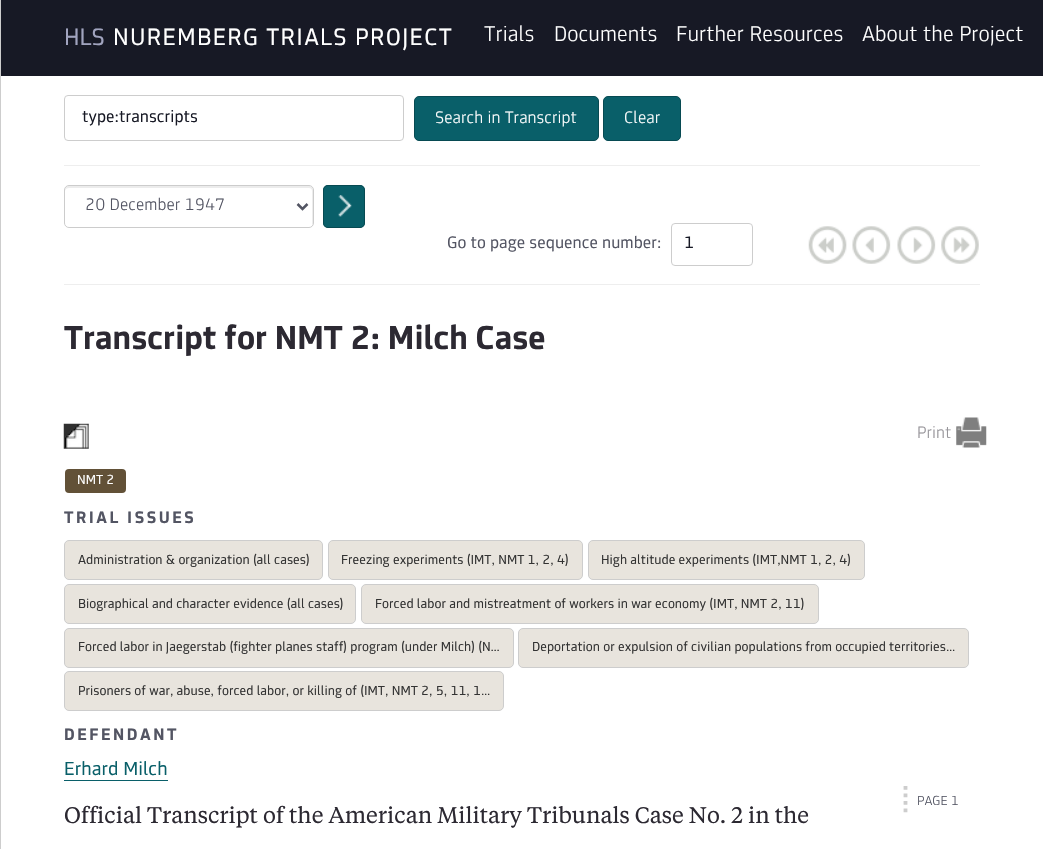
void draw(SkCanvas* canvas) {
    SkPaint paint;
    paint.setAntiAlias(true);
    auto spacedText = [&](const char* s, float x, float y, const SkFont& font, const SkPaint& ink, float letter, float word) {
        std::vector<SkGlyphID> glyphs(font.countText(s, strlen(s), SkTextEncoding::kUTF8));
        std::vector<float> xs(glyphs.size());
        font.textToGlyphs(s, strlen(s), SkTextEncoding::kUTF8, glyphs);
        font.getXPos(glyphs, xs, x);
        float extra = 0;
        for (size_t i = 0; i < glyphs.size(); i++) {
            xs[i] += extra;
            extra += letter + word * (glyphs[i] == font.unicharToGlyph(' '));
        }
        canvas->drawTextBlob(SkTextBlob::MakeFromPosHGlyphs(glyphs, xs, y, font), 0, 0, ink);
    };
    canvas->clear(0xFFFFFFFF);
    paint.setColor(0xFFCDCDCD);
    canvas->drawRect(SkRect::MakeXYWH(0, 0, 1, 849), paint);
    paint.setColor(0xFF171925);
    canvas->drawRect(SkRect::MakeXYWH(1, 0, 1042, 76), paint);
    SkFont font1(fontMgr->matchFamilyStyle("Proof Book", SkFontStyle::Normal()), 25);
    font1.setSubpixel(true);
    paint.setColor(0xFFA1A4BF);
    canvas->drawString("HLS", 64, 45, font1, paint);
    paint.setColor(0xFFFFFFFF);
    spacedText("NUREMBERG TRIALS PROJECT", 113, 45, font1, paint, 1.25f, 0);
    SkFont font2(fontMgr->matchFamilyStyle("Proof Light", SkFontStyle(300, SkFontStyle::kNormal_Width, SkFontStyle::kUpright_Slant)), 22.5f);
    font2.setSubpixel(true);
    canvas->drawString("Trials", 484, 41, font2, paint);
    canvas->drawString("Documents", 554, 41, font2, paint);
    canvas->drawString("Further Resources", 676, 41, font2, paint);
    canvas->drawString("About the Project", 862, 41, font2, paint);
    paint.setStyle(SkPaint::kStroke_Style);
    paint.setStrokeWidth(1);
    paint.setColor(0xFFCDCDCD);
    canvas->drawRoundRect(SkRect::MakeXYWH(64.5f, 95.5f, 339, 45), 3.5f, 3.5f, paint);
    SkFont font3(fontMgr->matchFamilyStyle("Proof Book", SkFontStyle::Normal()), 17.5f);
    font3.setSubpixel(true);
    paint.setStyle(SkPaint::kFill_Style);
    paint.setColor(0xFF171925);
    canvas->drawString("type:transcripts", 82, 122, font3, paint);
    paint.setColor(0xFF095F69);
    canvas->drawRoundRect(SkRect::MakeXYWH(414.5f, 96.5f, 184, 44), 4.5f, 4.5f, paint);
    paint.setStyle(SkPaint::kStroke_Style);
    paint.setColor(0xFF074A52);
    canvas->drawRoundRect(SkRect::MakeXYWH(414.5f, 96.5f, 184, 44), 4.5f, 4.5f, paint);
    SkFont font4(fontMgr->matchFamilyStyle("Proof Light", SkFontStyle(300, SkFontStyle::kNormal_Width, SkFontStyle::kUpright_Slant)), 17.5f);
    font4.setSubpixel(true);
    paint.setStyle(SkPaint::kFill_Style);
    paint.setColor(0xFFFFFFFF);
    canvas->drawString("Search in Transcript", 435, 123, font4, paint);
    paint.setColor(0xFF095F69);
    canvas->drawRoundRect(SkRect::MakeXYWH(603.5f, 96.5f, 77, 44), 4.5f, 4.5f, paint);
    paint.setStyle(SkPaint::kStroke_Style);
    paint.setColor(0xFF074A52);
    canvas->drawRoundRect(SkRect::MakeXYWH(603.5f, 96.5f, 77, 44), 4.5f, 4.5f, paint);
    paint.setStyle(SkPaint::kFill_Style);
    paint.setColor(0xFFFFFFFF);
    canvas->drawString("Clear", 624, 123, font4, paint);
    paint.setColor(0xFFEEEEEE);
    canvas->drawRect(SkRect::MakeXYWH(64, 165, 916, 1), paint);
    paint.setColor(0xFFECECEC);
    canvas->drawPath(SkPathBuilder().moveTo(69, 188).lineTo(309, 188).cubicTo(311, 188, 312, 189, 312, 191).lineTo(312, 225).cubicTo(313, 224, 313, 223, 313, 222).lineTo(313, 190).cubicTo(313, 188, 311, 186, 309, 186).lineTo(69, 186).cubicTo(67, 186, 65, 188, 65, 190).lineTo(65, 191).cubicTo(65, 189, 67, 188, 69, 188).close().detach(), paint);
    paint.setStyle(SkPaint::kStroke_Style);
    paint.setColor(0xFFCCCCCC);
    canvas->drawRoundRect(SkRect::MakeXYWH(64.5f, 185.5f, 249, 42), 4.5f, 4.5f, paint);
    paint.setStrokeWidth(2.5f);
    paint.setColor(0xFF535563);
    canvas->drawPath(SkPathBuilder().moveTo(297.5f, 204).lineTo(302.5f, 209).lineTo(307.5f, 204).detach(), paint);
    paint.setStyle(SkPaint::kFill_Style);
    canvas->drawString("20 December 1947", 85, 210, font4, paint);
    paint.setColor(0xFF095F69);
    canvas->drawRoundRect(SkRect::MakeXYWH(323, 185, 42, 43), 5, 5, paint);
    canvas->drawImageRect(SkImages::DeferredFromEncodedData(SkData::MakeFromFileName("img1.png")), SkRect::MakeXYWH(338, 195, 14, 22), SkSamplingOptions());
    paint.setStyle(SkPaint::kStroke_Style);
    paint.setStrokeWidth(1);
    paint.setColor(0xFF074A52);
    canvas->drawRoundRect(SkRect::MakeXYWH(323.5f, 185.5f, 41, 42), 4.5f, 4.5f, paint);
    paint.setStyle(SkPaint::kFill_Style);
    paint.setColor(0xFF535563);
    canvas->drawString("Go to page sequence number:", 447, 248, font3, paint);
    paint.setStyle(SkPaint::kStroke_Style);
    paint.setColor(0xFFCDCDCD);
    canvas->drawRoundRect(SkRect::MakeXYWH(671.5f, 223.5f, 81, 42), 3.5f, 3.5f, paint);
    paint.setStyle(SkPaint::kFill_Style);
    paint.setColor(0xFF171925);
    canvas->drawString("1", 684, 248, font3, paint);
    canvas->drawImageRect(SkImages::DeferredFromEncodedData(SkData::MakeFromFileName("img2.png")), SkRect::MakeXYWH(808, 226, 39, 38), SkSamplingOptions());
    canvas->drawImageRect(SkImages::DeferredFromEncodedData(SkData::MakeFromFileName("img3.png")), SkRect::MakeXYWH(852, 226, 39, 38), SkSamplingOptions());
    canvas->drawImageRect(SkImages::DeferredFromEncodedData(SkData::MakeFromFileName("img4.png")), SkRect::MakeXYWH(897, 226, 39, 38), SkSamplingOptions());
    canvas->drawImageRect(SkImages::DeferredFromEncodedData(SkData::MakeFromFileName("img5.png")), SkRect::MakeXYWH(941, 226, 38, 38), SkSamplingOptions());
    paint.setColor(0xFFEEEEEE);
    canvas->drawRect(SkRect::MakeXYWH(64, 284, 916, 1), paint);
    SkFont font5(fontMgr->matchFamilyStyle("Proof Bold", SkFontStyle::Bold()), 35);
    font5.setSubpixel(true);
    paint.setColor(0xFF2C2932);
    canvas->drawString("Transcript for NMT 2: Milch Case", 64, 349, font5, paint);
    canvas->drawImageRect(SkImages::DeferredFromEncodedData(SkData::MakeFromFileName("img6.png")), SkRect::MakeXYWH(63, 423, 26, 26), SkSamplingOptions());
    canvas->drawImageRect(SkImages::DeferredFromEncodedData(SkData::MakeFromFileName("img7.png")), SkRect::MakeXYWH(956, 417, 31, 31), SkSamplingOptions());
    paint.setColor(0xFF969499);
    canvas->drawString("Print", 917, 438, font4, paint);
    paint.setColor(0xFF625137);
    canvas->drawRoundRect(SkRect::MakeXYWH(65, 469, 61, 24), 4, 4, paint);
    SkFont font6(fontMgr->matchFamilyStyle("Proof Book", SkFontStyle::Normal()), 13.75f);
    font6.setSubpixel(true);
    paint.setColor(0xFFFFFFFF);
    canvas->drawString("NMT 2", 77, 484, font6, paint);
    SkFont font7(fontMgr->matchFamilyStyle("Proof Bold", SkFontStyle::Bold()), 17.5f);
    font7.setSubpixel(true);
    paint.setColor(0xFF535563);
    spacedText("TRIAL ISSUES", 64, 523, font7, paint, 2.5f, 0);
    paint.setColor(0xFFE8E4DD);
    canvas->drawRoundRect(SkRect::MakeXYWH(64.5f, 540.5f, 258, 39), 4.5f, 4.5f, paint);
    paint.setStyle(SkPaint::kStroke_Style);
    paint.setColor(0xFFCDCDCD);
    canvas->drawRoundRect(SkRect::MakeXYWH(64.5f, 540.5f, 258, 39), 4.5f, 4.5f, paint);
    paint.setStyle(SkPaint::kFill_Style);
    paint.setColor(0xFF333333);
    canvas->drawString("Administration & organization (all cases)", 78, 564, font6, paint);
    paint.setColor(0xFFE8E4DD);
    canvas->drawRoundRect(SkRect::MakeXYWH(328.5f, 540.5f, 254, 39), 4.5f, 4.5f, paint);
    paint.setStyle(SkPaint::kStroke_Style);
    paint.setColor(0xFFCDCDCD);
    canvas->drawRoundRect(SkRect::MakeXYWH(328.5f, 540.5f, 254, 39), 4.5f, 4.5f, paint);
    paint.setStyle(SkPaint::kFill_Style);
    paint.setColor(0xFF333333);
    canvas->drawString("Freezing experiments (IMT, NMT 1, 2, 4)", 341, 564, font6, paint);
    paint.setColor(0xFFE8E4DD);
    canvas->drawRoundRect(SkRect::MakeXYWH(588.5f, 540.5f, 276, 39), 4.5f, 4.5f, paint);
    paint.setStyle(SkPaint::kStroke_Style);
    paint.setColor(0xFFCDCDCD);
    canvas->drawRoundRect(SkRect::MakeXYWH(588.5f, 540.5f, 276, 39), 4.5f, 4.5f, paint);
    paint.setStyle(SkPaint::kFill_Style);
    paint.setColor(0xFF333333);
    canvas->drawString("High altitude experiments (IMT,NMT 1, 2, 4)", 601, 564, font6, paint);
    paint.setColor(0xFFE8E4DD);
    canvas->drawRoundRect(SkRect::MakeXYWH(64.5f, 584.5f, 291, 39), 4.5f, 4.5f, paint);
    paint.setStyle(SkPaint::kStroke_Style);
    paint.setColor(0xFFCDCDCD);
    canvas->drawRoundRect(SkRect::MakeXYWH(64.5f, 584.5f, 291, 39), 4.5f, 4.5f, paint);
    paint.setStyle(SkPaint::kFill_Style);
    paint.setColor(0xFF333333);
    canvas->drawString("Biographical and character evidence (all cases)", 78, 608, font6, paint);
    paint.setColor(0xFFE8E4DD);
    canvas->drawRoundRect(SkRect::MakeXYWH(361.5f, 584.5f, 457, 39), 4.5f, 4.5f, paint);
    paint.setStyle(SkPaint::kStroke_Style);
    paint.setColor(0xFFCDCDCD);
    canvas->drawRoundRect(SkRect::MakeXYWH(361.5f, 584.5f, 457, 39), 4.5f, 4.5f, paint);
    paint.setStyle(SkPaint::kFill_Style);
    paint.setColor(0xFF333333);
    canvas->drawString("Forced labor and mistreatment of workers in war economy (IMT, NMT 2, 11)", 375, 608, font6, paint);
    paint.setColor(0xFFE8E4DD);
    canvas->drawRoundRect(SkRect::MakeXYWH(64.5f, 628.5f, 449, 39), 4.5f, 4.5f, paint);
    paint.setStyle(SkPaint::kStroke_Style);
    paint.setColor(0xFFCDCDCD);
    canvas->drawRoundRect(SkRect::MakeXYWH(64.5f, 628.5f, 449, 39), 4.5f, 4.5f, paint);
    paint.setStyle(SkPaint::kFill_Style);
    paint.setColor(0xFF333333);
    canvas->drawString("Forced labor in Jaegerstab (fighter planes staff) program (under Milch) (N…", 78, 651, font6, paint);
    paint.setColor(0xFFE8E4DD);
    canvas->drawRoundRect(SkRect::MakeXYWH(518.5f, 628.5f, 450, 39), 4.5f, 4.5f, paint);
    paint.setStyle(SkPaint::kStroke_Style);
    paint.setColor(0xFFCDCDCD);
    canvas->drawRoundRect(SkRect::MakeXYWH(518.5f, 628.5f, 450, 39), 4.5f, 4.5f, paint);
    paint.setStyle(SkPaint::kFill_Style);
    paint.setColor(0xFF333333);
    canvas->drawString("Deportation or expulsion of civilian populations from occupied territories…", 532, 651, font6, paint);
    paint.setColor(0xFFE8E4DD);
    canvas->drawRoundRect(SkRect::MakeXYWH(64.5f, 671.5f, 439, 39), 4.5f, 4.5f, paint);
    paint.setStyle(SkPaint::kStroke_Style);
    paint.setColor(0xFFCDCDCD);
    canvas->drawRoundRect(SkRect::MakeXYWH(64.5f, 671.5f, 439, 39), 4.5f, 4.5f, paint);
    paint.setStyle(SkPaint::kFill_Style);
    paint.setColor(0xFF333333);
    canvas->drawString("Prisoners of war, abuse, forced labor, or killing of (IMT, NMT 2, 5, 11, 1…", 78, 695, font6, paint);
    paint.setColor(0xFF535563);
    spacedText("DEFENDANT", 64, 740, font7, paint, 2.5f, 0);
    SkFont font8(fontMgr->matchFamilyStyle("Proof Book", SkFontStyle::Normal()), 20);
    font8.setSubpixel(true);
    paint.setColor(0xFF095F69);
    canvas->drawString("Erhard Milch", 64, 775, font8, paint);
    canvas->drawRect(SkRect::MakeXYWH(64, 780, 104, 1), paint);
    SkFont font9(fontMgr->matchFamilyStyle("Proof Light", SkFontStyle(300, SkFontStyle::kNormal_Width, SkFontStyle::kUpright_Slant)), 13.75f);
    font9.setSubpixel(true);
    paint.setColor(0xFF535563);
    canvas->drawString("PAGE 1", 917, 805, font9, paint);
    paint.setStyle(SkPaint::kStroke_Style);
    paint.setStrokeWidth(3.8f);
    paint.setColor(0xFFCDCDCD);
    paint.setPathEffect(SkDashPathEffect::Make({{3.75f, 3.75f}}, 0));
    canvas->drawPath(SkPathBuilder().moveTo(905.5f, 786).lineTo(905.5f, 816).detach(), paint);
    paint.setPathEffect(nullptr);
    SkFont font10(fontMgr->matchFamilyStyle("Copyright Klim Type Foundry", SkFontStyle::Normal()), 22.5f);
    font10.setSubpixel(true);
    paint.setStyle(SkPaint::kFill_Style);
    paint.setColor(0xFF2C2932);
    canvas->drawString("Official Transcript of the American Military Tribunals Case No. 2 in the", 64, 823, font10, paint);
}
